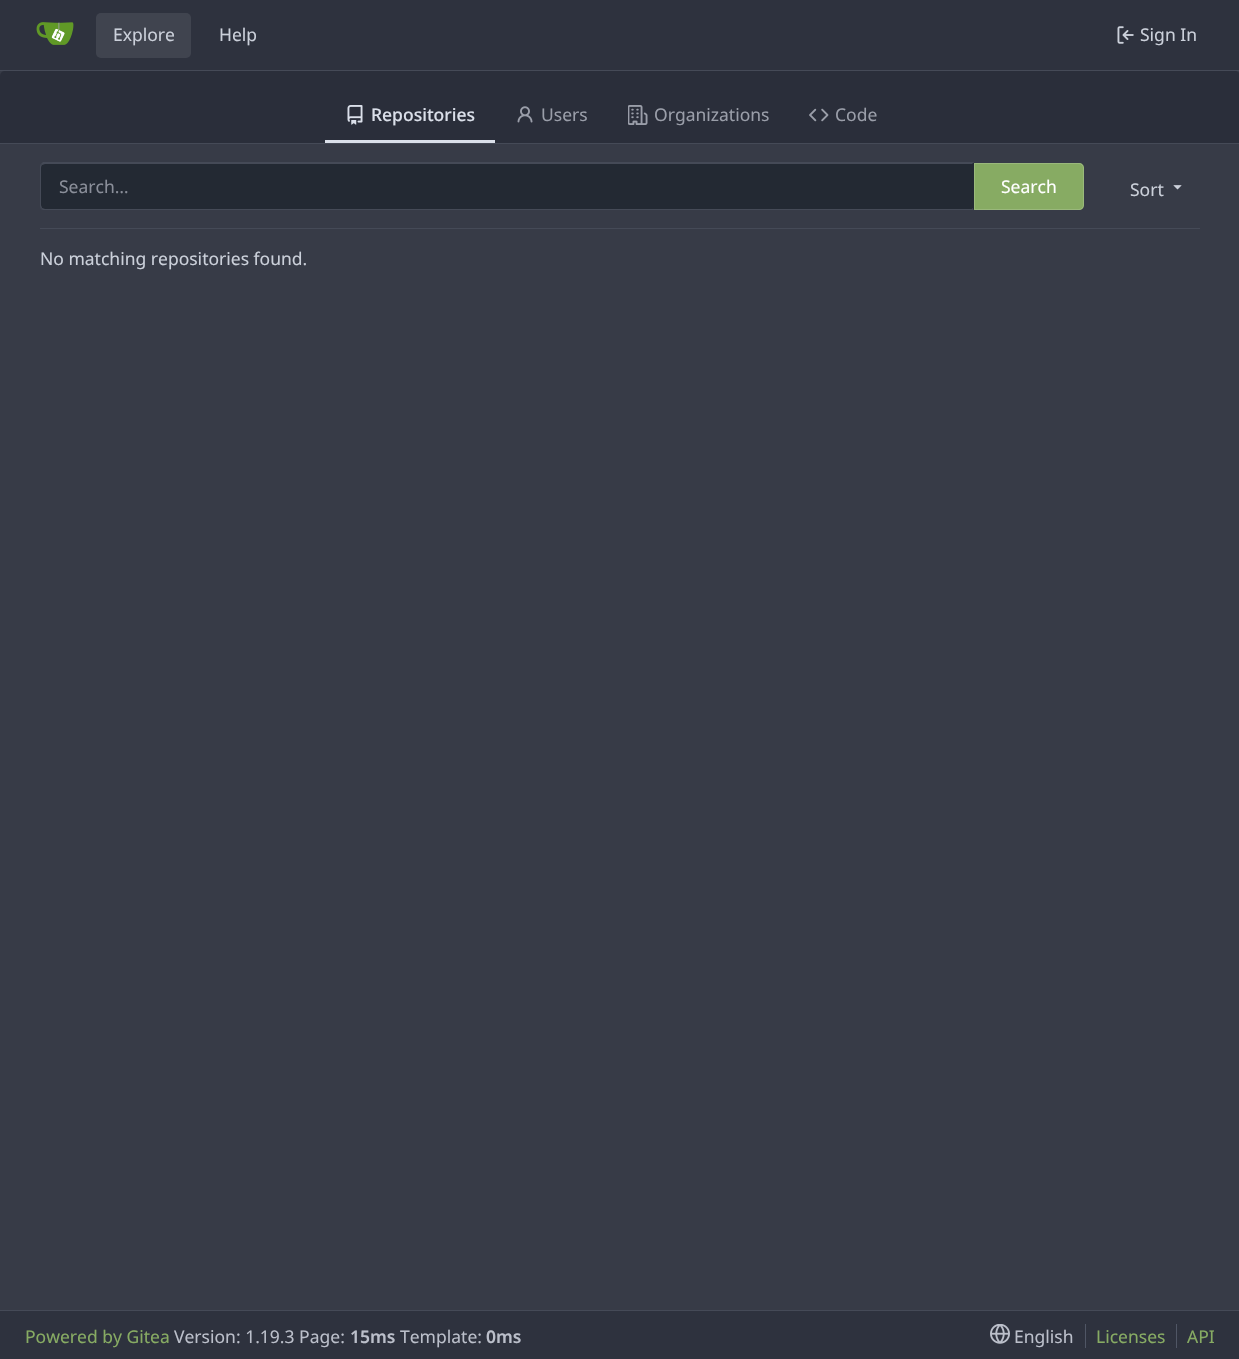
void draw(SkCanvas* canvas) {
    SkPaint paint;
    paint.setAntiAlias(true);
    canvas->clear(0xFF373B47);
    paint.setColor(0xFF2E323E);
    canvas->drawRect(SkRect::MakeXYWH(0, 0, 1239, 70), paint);
    paint.setColor(0xFF454A57);
    canvas->drawRect(SkRect::MakeXYWH(0, 70, 1239, 1), paint);
    canvas->drawImageRect(SkImages::DeferredFromEncodedData(SkData::MakeFromFileName("img1.png")), SkRect::MakeXYWH(36, 22, 38, 23), SkSamplingOptions());
    paint.setColor(0xFF40444F);
    canvas->drawRoundRect(SkRect::MakeXYWH(96, 13, 95, 45), 5, 5, paint);
    SkFont font1(fontMgr->matchFamilyStyle("Noto Sans", SkFontStyle::Normal()), 17.5f);
    font1.setSubpixel(true);
    paint.setColor(0xFFCBD0DA);
    canvas->drawString("Explore", 113, 41, font1, paint);
    canvas->drawString("Help", 219, 41, font1, paint);
    canvas->drawImageRect(SkImages::DeferredFromEncodedData(SkData::MakeFromFileName("img2.png")), SkRect::MakeXYWH(1117, 26, 17, 18), SkSamplingOptions());
    canvas->drawString("Sign In", 1140, 41, font1, paint);
    paint.setColor(0xFF2A2E3A);
    canvas->drawPath(SkPathBuilder().moveTo(5, 71).lineTo(1235, 71).cubicTo(1238, 71, 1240, 73, 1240, 76).lineTo(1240, 144).lineTo(0, 144).lineTo(0, 76).cubicTo(0, 73, 2, 71, 5, 71).close().detach(), paint);
    paint.setColor(0xFF454A57);
    canvas->drawRect(SkRect::MakeXYWH(0, 143, 1239, 1), paint);
    paint.setColor(0xFFDBE0EA);
    canvas->drawRect(SkRect::MakeXYWH(325, 140, 170, 3), paint);
    canvas->drawImageRect(SkImages::DeferredFromEncodedData(SkData::MakeFromFileName("img3.png")), SkRect::MakeXYWH(347, 105, 16, 20), SkSamplingOptions());
    SkFont font2(fontMgr->matchFamilyStyle("Noto Sans", SkFontStyle(500, SkFontStyle::kNormal_Width, SkFontStyle::kUpright_Slant)), 17.5f);
    font2.setSubpixel(true);
    canvas->drawString("Repositories", 371, 121, font2, paint);
    canvas->drawImageRect(SkImages::DeferredFromEncodedData(SkData::MakeFromFileName("img4.png")), SkRect::MakeXYWH(517, 106, 16, 17), SkSamplingOptions());
    paint.setColor(0xFF9A9EA9);
    canvas->drawString("Users", 541, 121, font1, paint);
    canvas->drawImageRect(SkImages::DeferredFromEncodedData(SkData::MakeFromFileName("img5.png")), SkRect::MakeXYWH(628, 105, 20, 20), SkSamplingOptions());
    canvas->drawString("Organizations", 654, 121, font1, paint);
    canvas->drawImageRect(SkImages::DeferredFromEncodedData(SkData::MakeFromFileName("img6.png")), SkRect::MakeXYWH(809, 108, 20, 14), SkSamplingOptions());
    canvas->drawString("Code", 835, 121, font1, paint);
    paint.setColor(0xFF232933);
    canvas->drawPath(SkPathBuilder().moveTo(45, 163).lineTo(974, 163).lineTo(974, 210).lineTo(45, 210).cubicTo(42, 210, 40, 208, 40, 205).lineTo(40, 168).cubicTo(40, 165, 42, 163, 45, 163).close().detach(), paint);
    paint.setColor(0xFF454A57);
    canvas->drawPath(SkPathBuilder().moveTo(45, 164).lineTo(42, 165).lineTo(41, 164).lineTo(43, 162).lineTo(974, 162).lineTo(972, 164).close().detach(), paint);
    canvas->drawPath(SkPathBuilder().moveTo(974, 210).lineTo(972, 208).lineTo(972, 209).lineTo(45, 209).lineTo(42, 208).lineTo(41, 209).cubicTo(42, 210, 44, 210, 45, 210).close().detach(), paint);
    canvas->drawPath(SkPathBuilder().moveTo(40, 168).lineTo(40, 205).cubicTo(40, 206, 40, 208, 41, 209).lineTo(42, 208).cubicTo(42, 207, 41, 206, 41, 205).lineTo(41, 168).cubicTo(41, 166, 42, 165, 42, 165).lineTo(41, 164).cubicTo(40, 165, 40, 166, 40, 168).close().detach(), paint);
    paint.setColor(0xFF8A8E99);
    canvas->drawString("Search…", 59, 193, font1, paint);
    paint.setColor(0xFF87AB63);
    canvas->drawPath(SkPathBuilder().moveTo(974, 163).lineTo(1079, 163).cubicTo(1082, 163, 1084, 165, 1084, 168).lineTo(1084, 205).cubicTo(1084, 208, 1082, 210, 1079, 210).lineTo(974, 210).close().detach(), paint);
    paint.setStyle(SkPaint::kStroke_Style);
    paint.setStrokeWidth(1);
    paint.setColor(0x29FFFFFF);
    canvas->drawPath(SkPathBuilder().moveTo(974.5f, 163.5f).lineTo(1079, 163.5f).cubicTo(1081.5f, 163.5f, 1083.5f, 165.5f, 1083.5f, 168).lineTo(1083.5f, 205).cubicTo(1083.5f, 207.5f, 1081.5f, 209.5f, 1079, 209.5f).lineTo(974.5f, 209.5f).close().detach(), paint);
    paint.setStyle(SkPaint::kFill_Style);
    paint.setColor(0xFFFFFFFF);
    canvas->drawString("Search", 1001, 193, font1, paint);
    paint.setColor(0xFFCBD0DA);
    canvas->drawString("Sort", 1130, 196, font1, paint);
    canvas->drawImageRect(SkImages::DeferredFromEncodedData(SkData::MakeFromFileName("img7.png")), SkRect::MakeXYWH(1173, 185, 9, 5), SkSamplingOptions());
    paint.setColor(0xFF454A57);
    canvas->drawRect(SkRect::MakeXYWH(40, 228, 1160, 1), paint);
    paint.setColor(0xFFCBD0DA);
    canvas->drawString("No matching repositories found.", 40, 265, font1, paint);
    paint.setColor(0xFF2E323E);
    canvas->drawRect(SkRect::MakeXYWH(0, 1311, 1239, 48), paint);
    paint.setColor(0xFF454A57);
    canvas->drawRect(SkRect::MakeXYWH(0, 1310, 1239, 1), paint);
    paint.setColor(0xFF87AB63);
    canvas->drawString("Powered by Gitea", 25, 1343, font1, paint);
    paint.setColor(0xFFBBBFCA);
    canvas->drawString("Version: 1.19.3 Page:", 174, 1343, font1, paint);
    SkFont font3(fontMgr->matchFamilyStyle("Noto Sans", SkFontStyle(600, SkFontStyle::kNormal_Width, SkFontStyle::kUpright_Slant)), 17.5f);
    font3.setSubpixel(true);
    canvas->drawString("15ms", 350, 1343, font3, paint);
    canvas->drawString("Template:", 400, 1343, font1, paint);
    canvas->drawString("0ms", 486, 1343, font3, paint);
    canvas->drawImageRect(SkImages::DeferredFromEncodedData(SkData::MakeFromFileName("img8.png")), SkRect::MakeXYWH(990, 1324, 20, 20), SkSamplingOptions());
    canvas->drawString("English", 1014, 1343, font1, paint);
    paint.setColor(0xFF87AB63);
    canvas->drawString("Licenses", 1096, 1343, font1, paint);
    paint.setColor(0xFF505665);
    canvas->drawRect(SkRect::MakeXYWH(1085, 1324, 1, 24), paint);
    paint.setColor(0xFF87AB63);
    canvas->drawString("API", 1187, 1343, font1, paint);
    paint.setColor(0xFF505665);
    canvas->drawRect(SkRect::MakeXYWH(1176, 1324, 1, 24), paint);
}
